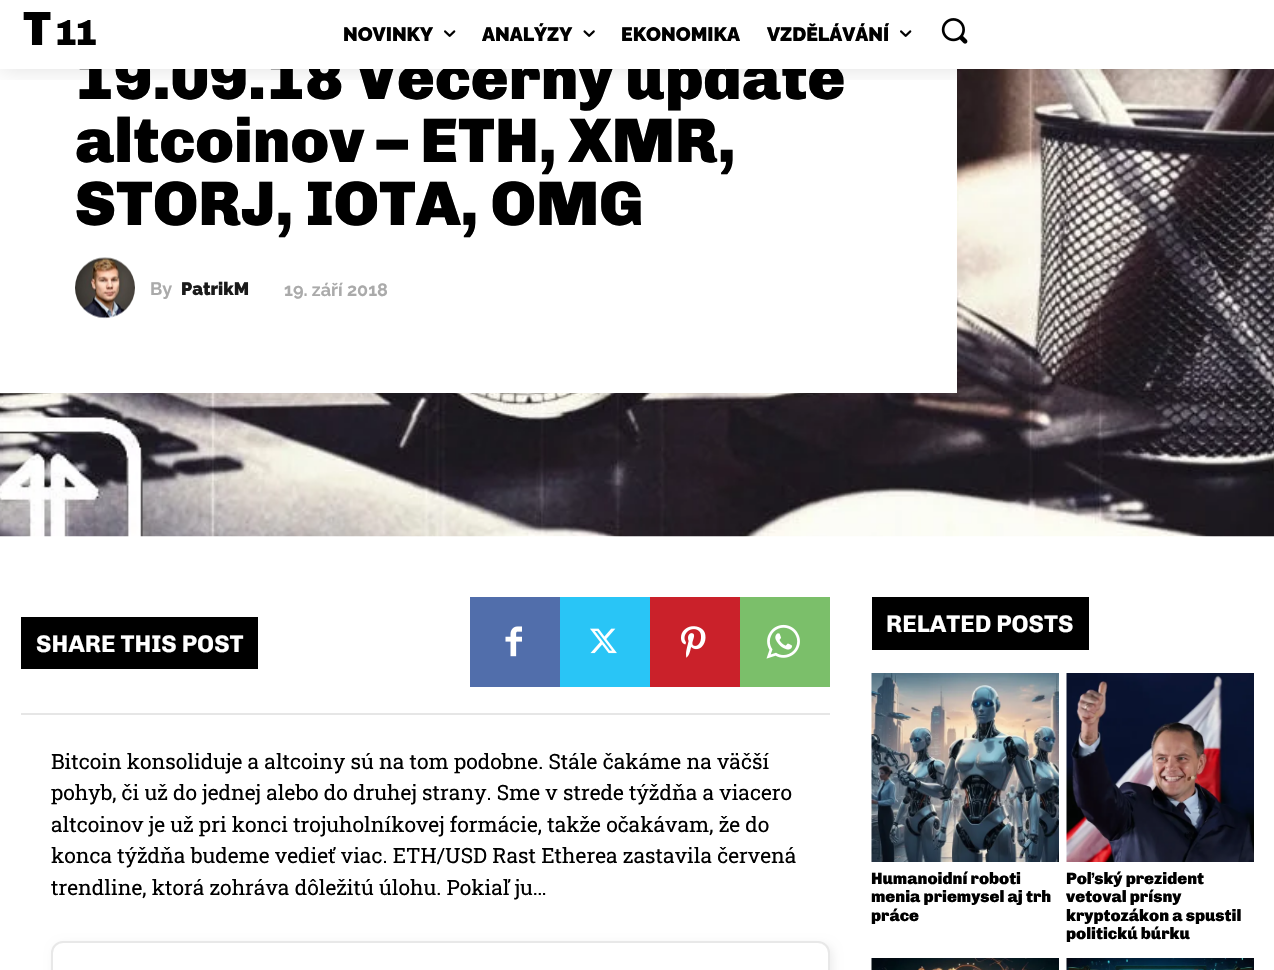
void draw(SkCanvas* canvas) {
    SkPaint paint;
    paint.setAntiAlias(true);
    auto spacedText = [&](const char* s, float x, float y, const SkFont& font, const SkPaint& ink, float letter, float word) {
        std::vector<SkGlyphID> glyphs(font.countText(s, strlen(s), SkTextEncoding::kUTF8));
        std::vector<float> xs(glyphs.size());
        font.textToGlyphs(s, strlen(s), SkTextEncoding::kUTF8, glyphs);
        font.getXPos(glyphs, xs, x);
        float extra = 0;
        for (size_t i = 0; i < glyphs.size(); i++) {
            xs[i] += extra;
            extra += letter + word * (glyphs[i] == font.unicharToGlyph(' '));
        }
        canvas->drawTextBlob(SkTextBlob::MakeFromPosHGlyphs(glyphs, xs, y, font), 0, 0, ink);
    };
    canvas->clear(0xFFFFFFFF);
    canvas->drawImageRect(SkImages::DeferredFromEncodedData(SkData::MakeFromFileName("img5.png")), SkRect::MakeXYWH(0, 69, 1274, 468), SkSamplingOptions());
    paint.setColor(0xFFFFFFFF);
    canvas->drawRect(SkRect::MakeXYWH(0, 69, 957, 324), paint);
    SkFont font1(fontMgr->matchFamilyStyle("Chivo", SkFontStyle(900, SkFontStyle::kNormal_Width, SkFontStyle::kUpright_Slant)), 63);
    font1.setSubpixel(true);
    paint.setColor(0xFF000000);
    canvas->drawString("19.09.18 Večerný update", 75, 99, font1, paint);
    paint.setColor(0xFFFFFFFF);
    canvas->drawRect(SkRect::MakeXYWH(79, 50, 759, 19), paint);
    canvas->save();
    canvas->clipRect(SkRect::MakeXYWH(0, 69, 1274, 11));
    paint.setColor(0x1F000000);
    paint.setMaskFilter(SkMaskFilter::MakeBlur(kNormal_SkBlurStyle, 11));
    canvas->drawRect(SkRect::MakeXYWH(0, 0, 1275, 69), paint);
    paint.setMaskFilter(nullptr);
    canvas->restore();
    SkFont font2(fontMgr->matchFamilyStyle("Chivo", SkFontStyle(900, SkFontStyle::kNormal_Width, SkFontStyle::kUpright_Slant)), 48);
    font2.setSubpixel(true);
    paint.setColor(0xFF000000);
    spacedText("T", 23, 45, font2, paint, -2, 0);
    SkFont font3(fontMgr->matchFamilyStyle("Chivo", SkFontStyle(900, SkFontStyle::kNormal_Width, SkFontStyle::kUpright_Slant)), 36);
    font3.setSubpixel(true);
    spacedText("11", 55, 45, font3, paint, -2, 0);
    SkFont font4(fontMgr->matchFamilyStyle("Raleway", SkFontStyle(900, SkFontStyle::kNormal_Width, SkFontStyle::kUpright_Slant)), 19.5f);
    font4.setSubpixel(true);
    canvas->drawString("NOVINKY", 343, 41, font4, paint);
    canvas->drawImageRect(SkImages::DeferredFromEncodedData(SkData::MakeFromFileName("img1.png")), SkRect::MakeXYWH(444, 30, 12, 7), SkSamplingOptions());
    canvas->drawString("ANALÝZY", 482, 41, font4, paint);
    canvas->drawImageRect(SkImages::DeferredFromEncodedData(SkData::MakeFromFileName("img2.png")), SkRect::MakeXYWH(583, 30, 12, 7), SkSamplingOptions());
    canvas->drawString("EKONOMIKA", 621, 41, font4, paint);
    canvas->drawString("VZDĚLÁVÁNÍ", 767, 41, font4, paint);
    canvas->drawImageRect(SkImages::DeferredFromEncodedData(SkData::MakeFromFileName("img1.png")), SkRect::MakeXYWH(900, 30, 12, 7), SkSamplingOptions());
    canvas->drawImageRect(SkImages::DeferredFromEncodedData(SkData::MakeFromFileName("img3.png")), SkRect::MakeXYWH(941, 18, 27, 26), SkSamplingOptions());
    canvas->drawString("altcoinov – ETH, XMR,", 75, 162, font1, paint);
    canvas->drawString("STORJ, IOTA, OMG", 75, 225, font1, paint);
    canvas->drawImageRect(SkImages::DeferredFromEncodedData(SkData::MakeFromFileName("img4.png")), SkRect::MakeXYWH(75, 257, 60, 62), SkSamplingOptions());
    SkFont font5(fontMgr->matchFamilyStyle("Raleway", SkFontStyle::Bold()), 18);
    font5.setSubpixel(true);
    paint.setColor(0xFFAAAAAA);
    canvas->drawString("By", 150, 295, font5, paint);
    SkFont font6(fontMgr->matchFamilyStyle("Raleway", SkFontStyle(900, SkFontStyle::kNormal_Width, SkFontStyle::kUpright_Slant)), 18);
    font6.setSubpixel(true);
    paint.setColor(0xFF1A1A1A);
    canvas->drawString("PatrikM", 181, 295, font6, paint);
    paint.setColor(0xFFAAAAAA);
    canvas->drawString("19. září 2018", 284, 296, font5, paint);
    paint.setColor(0xFFE6E6E6);
    canvas->drawRect(SkRect::MakeXYWH(21, 713, 809, 2), paint);
    paint.setColor(0xFF000000);
    canvas->drawRect(SkRect::MakeXYWH(21, 617, 237, 52), paint);
    SkFont font7(fontMgr->matchFamilyStyle("Chivo", SkFontStyle::Bold()), 24);
    font7.setSubpixel(true);
    paint.setColor(0xFFFFFFFF);
    canvas->drawString("SHARE THIS POST", 36, 652, font7, paint);
    paint.setColor(0xFF516EAB);
    canvas->drawRect(SkRect::MakeXYWH(470, 597, 90, 90), paint);
    canvas->drawImageRect(SkImages::DeferredFromEncodedData(SkData::MakeFromFileName("img6.png")), SkRect::MakeXYWH(505, 626, 17, 31), SkSamplingOptions());
    paint.setColor(0xFF29C5F6);
    canvas->drawRect(SkRect::MakeXYWH(560, 597, 90, 90), paint);
    canvas->drawImageRect(SkImages::DeferredFromEncodedData(SkData::MakeFromFileName("img7.png")), SkRect::MakeXYWH(590, 628, 27, 26), SkSamplingOptions());
    paint.setColor(0xFFCA212A);
    canvas->drawRect(SkRect::MakeXYWH(650, 597, 90, 90), paint);
    canvas->drawImageRect(SkImages::DeferredFromEncodedData(SkData::MakeFromFileName("img8.png")), SkRect::MakeXYWH(681, 626, 25, 32), SkSamplingOptions());
    paint.setColor(0xFF7BBF6A);
    canvas->drawRect(SkRect::MakeXYWH(740, 597, 90, 90), paint);
    canvas->drawImageRect(SkImages::DeferredFromEncodedData(SkData::MakeFromFileName("img9.png")), SkRect::MakeXYWH(766, 624, 34, 35), SkSamplingOptions());
    SkFont font8(fontMgr->matchFamilyStyle("Roboto Slab", SkFontStyle::Normal()), 21);
    font8.setSubpixel(true);
    paint.setColor(0xFF000000);
    canvas->drawString("Bitcoin konsoliduje a altcoiny sú na tom podobne. Stále čakáme na väčší", 51, 769, font8, paint);
    canvas->drawString("pohyb, či už do jednej alebo do druhej strany. Sme v strede týždňa a viacero", 51, 800, font8, paint);
    canvas->drawString("altcoinov je už pri konci trojuholníkovej formácie, takže očakávam, že do", 51, 832, font8, paint);
    canvas->drawString("konca týždňa budeme vedieť viac. ETH/USD Rast Etherea zastavila červená", 51, 863, font8, paint);
    canvas->drawString("trendline, ktorá zohráva dôležitú úlohu. Pokiaľ ju…", 51, 895, font8, paint);
    paint.setColor(0x12000000);
    paint.setMaskFilter(SkMaskFilter::MakeBlur(kNormal_SkBlurStyle, 5));
    canvas->drawRoundRect(SkRect::MakeXYWH(54, 944, 779, 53), 12, 12, paint);
    paint.setMaskFilter(nullptr);
    paint.setColor(0xFFFFFFFF);
    canvas->drawRoundRect(SkRect::MakeXYWH(52, 942, 777, 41), 11, 11, paint);
    paint.setStyle(SkPaint::kStroke_Style);
    paint.setStrokeWidth(2);
    paint.setColor(0xFFE8E8E8);
    canvas->drawRoundRect(SkRect::MakeXYWH(52, 942, 777, 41), 11, 11, paint);
    paint.setStyle(SkPaint::kFill_Style);
    paint.setColor(0xFF000000);
    canvas->drawRect(SkRect::MakeXYWH(872, 597, 217, 53), paint);
    paint.setColor(0xFFFFFFFF);
    canvas->drawString("RELATED POSTS", 886, 632, font7, paint);
    canvas->drawImageRect(SkImages::DeferredFromEncodedData(SkData::MakeFromFileName("img10.png")), SkRect::MakeXYWH(871, 673, 188, 189), SkSamplingOptions());
    SkFont font9(fontMgr->matchFamilyStyle("Chivo", SkFontStyle(900, SkFontStyle::kNormal_Width, SkFontStyle::kUpright_Slant)), 16.5f);
    font9.setSubpixel(true);
    paint.setColor(0xFF000000);
    canvas->drawString("Humanoidní roboti", 871, 884, font9, paint);
    canvas->drawString("menia priemysel aj trh", 871, 902, font9, paint);
    canvas->drawString("práce", 871, 921, font9, paint);
    canvas->drawImageRect(SkImages::DeferredFromEncodedData(SkData::MakeFromFileName("img11.png")), SkRect::MakeXYWH(1066, 673, 188, 189), SkSamplingOptions());
    canvas->drawString("Poľský prezident", 1066, 884, font9, paint);
    canvas->drawString("vetoval prísny", 1066, 902, font9, paint);
    canvas->drawString("kryptozákon a spustil", 1066, 921, font9, paint);
    canvas->drawString("politickú búrku", 1066, 939, font9, paint);
    canvas->drawImageRect(SkImages::DeferredFromEncodedData(SkData::MakeFromFileName("img12.png")), SkRect::MakeXYWH(871, 958, 188, 12), SkSamplingOptions());
    canvas->drawImageRect(SkImages::DeferredFromEncodedData(SkData::MakeFromFileName("img13.png")), SkRect::MakeXYWH(1066, 958, 188, 12), SkSamplingOptions());
}
